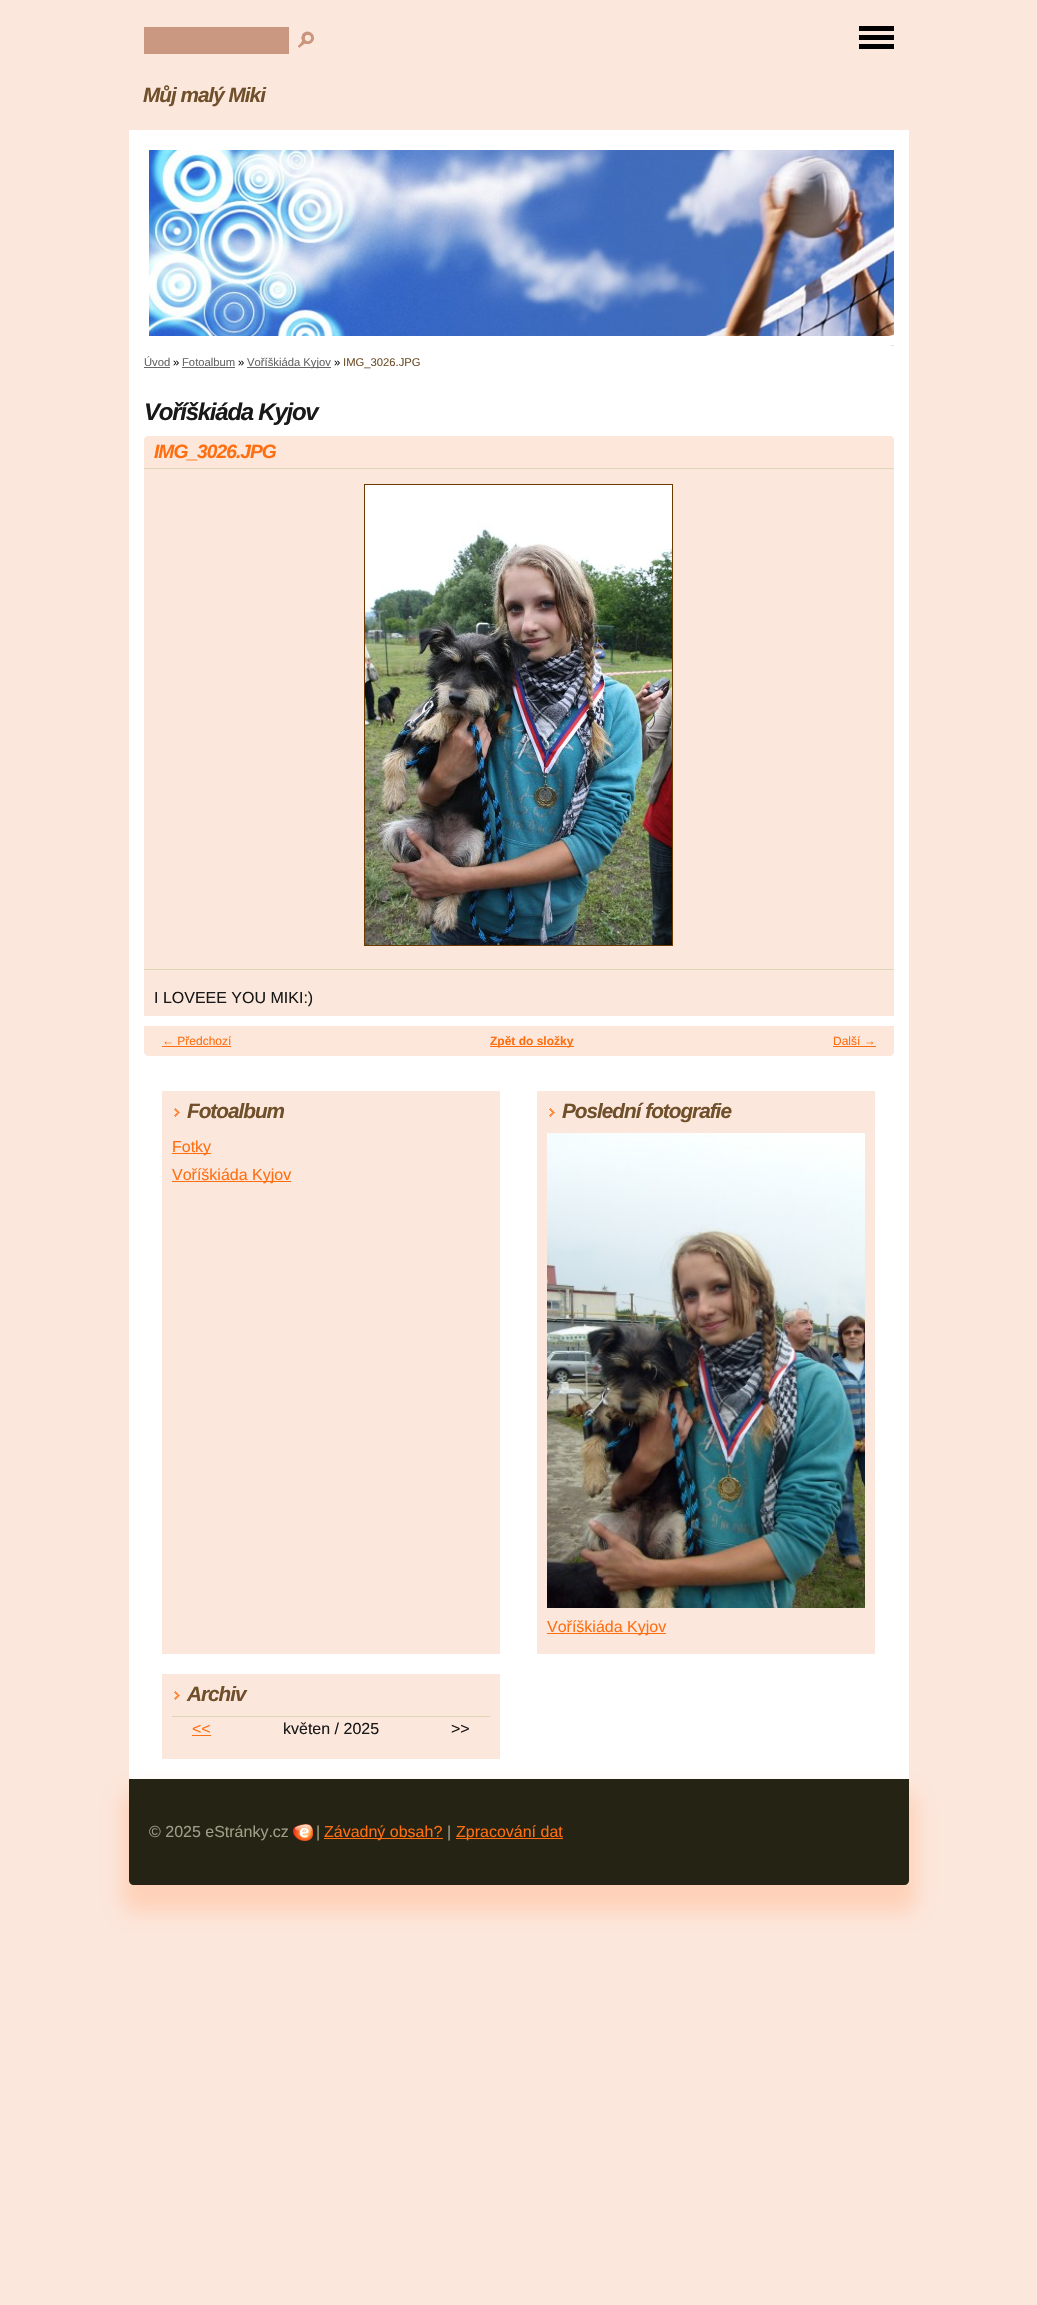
void draw(SkCanvas* canvas) {
    SkPaint paint;
    paint.setAntiAlias(true);
    auto spacedText = [&](const char* s, float x, float y, const SkFont& font, const SkPaint& ink, float letter, float word) {
        std::vector<SkGlyphID> glyphs(font.countText(s, strlen(s), SkTextEncoding::kUTF8));
        std::vector<float> xs(glyphs.size());
        font.textToGlyphs(s, strlen(s), SkTextEncoding::kUTF8, glyphs);
        font.getXPos(glyphs, xs, x);
        float extra = 0;
        for (size_t i = 0; i < glyphs.size(); i++) {
            xs[i] += extra;
            extra += letter + word * (glyphs[i] == font.unicharToGlyph(' '));
        }
        canvas->drawTextBlob(SkTextBlob::MakeFromPosHGlyphs(glyphs, xs, y, font), 0, 0, ink);
    };
    canvas->clear(0xFFFCE7DC);
    paint.setColor(0xFFFFFFFF);
    canvas->drawRect(SkRect::MakeXYWH(129, 130, 780, 1649), paint);
    paint.setColor(0xFF000000);
    canvas->drawRect(SkRect::MakeXYWH(859, 26, 35, 5), paint);
    canvas->drawRect(SkRect::MakeXYWH(859, 35, 35, 5), paint);
    canvas->drawRect(SkRect::MakeXYWH(859, 44, 35, 5), paint);
    canvas->drawImageRect(SkImages::DeferredFromEncodedData(SkData::MakeFromFileName("img1.png")), SkRect::MakeXYWH(149, 150, 745, 196), SkSamplingOptions());
    paint.setStyle(SkPaint::kStroke_Style);
    paint.setStrokeWidth(10);
    paint.setColor(0xFFFFFFFF);
    canvas->drawRoundRect(SkRect::MakeXYWH(134, 135, 770, 206), 15, 15, paint);
    SkFont font1(fontMgr->matchFamilyStyle("Liberation Sans", SkFontStyle::BoldItalic()), 20.75f);
    font1.setSubpixel(true);
    paint.setStyle(SkPaint::kFill_Style);
    paint.setColor(0xFF70502B);
    spacedText("Můj malý Miki", 143, 102, font1, paint, -1, 0);
    SkFont font2(fontMgr->matchFamilyStyle("Liberation Sans", SkFontStyle::Normal()), 11.25f);
    font2.setSubpixel(true);
    paint.setColor(0xFF666666);
    canvas->drawString("Úvod", 144, 366, font2, paint);
    canvas->drawRect(SkRect::MakeXYWH(144, 367, 26, 1), paint);
    paint.setColor(0xFF191919);
    canvas->drawString("»", 173, 366, font2, paint);
    paint.setColor(0xFF666666);
    canvas->drawString("Fotoalbum", 182, 366, font2, paint);
    canvas->drawRect(SkRect::MakeXYWH(182, 367, 53, 1), paint);
    paint.setColor(0xFF191919);
    canvas->drawString("»", 238, 366, font2, paint);
    paint.setColor(0xFF666666);
    canvas->drawRect(SkRect::MakeXYWH(247, 367, 84, 1), paint);
    canvas->drawString("Voříškiáda Kyjov", 247, 366, font2, paint);
    paint.setColor(0xFF191919);
    canvas->drawString("»", 334, 366, font2, paint);
    paint.setColor(0xFF70502B);
    canvas->drawString("IMG_3026.JPG", 343, 366, font2, paint);
    SkFont font3(fontMgr->matchFamilyStyle("Liberation Sans", SkFontStyle::BoldItalic()), 24);
    font3.setSubpixel(true);
    paint.setColor(0xFF191919);
    spacedText("Voříškiáda Kyjov", 144, 420, font3, paint, -1.25f, 0);
    paint.setColor(0xFFFCE7DC);
    canvas->drawPath(SkPathBuilder().moveTo(149, 436).lineTo(889, 436).cubicTo(892, 436, 894, 438, 894, 441).lineTo(894, 1016).lineTo(144, 1016).lineTo(144, 441).cubicTo(144, 438, 146, 436, 149, 436).close().detach(), paint);
    paint.setColor(0xFFFCE7DA);
    canvas->drawPath(SkPathBuilder().moveTo(149, 436).lineTo(889, 436).cubicTo(892, 436, 894, 438, 894, 441).lineTo(894, 469).lineTo(144, 469).lineTo(144, 441).cubicTo(144, 438, 146, 436, 149, 436).close().detach(), paint);
    paint.setColor(0xFFDED7B6);
    canvas->drawRect(SkRect::MakeXYWH(144, 468, 750, 1), paint);
    SkFont font4(fontMgr->matchFamilyStyle("Liberation Sans", SkFontStyle::BoldItalic()), 19.25f);
    font4.setSubpixel(true);
    paint.setColor(0xFFFF6F12);
    spacedText("IMG_3026.JPG", 154, 458, font4, paint, -1, 0);
    paint.setColor(0xFFDED7B6);
    canvas->drawRect(SkRect::MakeXYWH(144, 969, 750, 1), paint);
    paint.setStyle(SkPaint::kStroke_Style);
    paint.setStrokeWidth(1);
    paint.setColor(0xFF6C3A00);
    canvas->drawRect(SkRect::MakeXYWH(364.5f, 484.5f, 308, 461), paint);
    canvas->drawImageRect(SkImages::DeferredFromEncodedData(SkData::MakeFromFileName("img2.png")), SkRect::MakeXYWH(365, 485, 307, 460), SkSamplingOptions());
    SkFont font5(fontMgr->matchFamilyStyle("Liberation Sans", SkFontStyle::Normal()), 16);
    font5.setSubpixel(true);
    paint.setStyle(SkPaint::kFill_Style);
    paint.setColor(0xFF191919);
    canvas->drawString("I LOVEEE YOU MIKI:)", 154, 1003, font5, paint);
    paint.setColor(0xFFFCE7DA);
    canvas->drawPath(SkPathBuilder().moveTo(144, 1026).lineTo(894, 1026).lineTo(894, 1051).cubicTo(894, 1054, 892, 1056, 889, 1056).lineTo(149, 1056).cubicTo(146, 1056, 144, 1054, 144, 1051).close().detach(), paint);
    SkFont font6(fontMgr->matchFamilyStyle("Liberation Sans", SkFontStyle::Normal()), 12);
    font6.setSubpixel(true);
    paint.setColor(0xFFFF6F12);
    canvas->drawString("← Předchozí", 162, 1045, font6, paint);
    canvas->drawRect(SkRect::MakeXYWH(162, 1046, 69, 1), paint);
    canvas->drawRect(SkRect::MakeXYWH(490, 1046, 84, 1), paint);
    SkFont font7(fontMgr->matchFamilyStyle("Liberation Sans", SkFontStyle::Bold()), 12);
    font7.setSubpixel(true);
    canvas->drawString("Zpět do složky", 490, 1045, font7, paint);
    canvas->drawString("Další →", 833, 1045, font6, paint);
    canvas->drawRect(SkRect::MakeXYWH(833, 1046, 43, 1), paint);
    paint.setColor(0xFFCA9780);
    canvas->drawRect(SkRect::MakeXYWH(144, 27, 145, 27), paint);
    canvas->drawImageRect(SkImages::DeferredFromEncodedData(SkData::MakeFromFileName("img3.png")), SkRect::MakeXYWH(298, 31, 16, 18), SkSamplingOptions());
    paint.setColor(0xFFFCE7DC);
    canvas->drawRect(SkRect::MakeXYWH(162, 1091, 338, 563), paint);
    canvas->drawImageRect(SkImages::DeferredFromEncodedData(SkData::MakeFromFileName("img4.png")), SkRect::MakeXYWH(174, 1108, 6, 9), SkSamplingOptions());
    paint.setColor(0xFF70502B);
    spacedText("Fotoalbum", 187, 1118, font1, paint, -1, 0);
    paint.setColor(0xFFFF6F12);
    canvas->drawRect(SkRect::MakeXYWH(172, 1153, 39, 1), paint);
    canvas->drawString("Fotky", 172, 1152, font5, paint);
    canvas->drawRect(SkRect::MakeXYWH(172, 1181, 119, 1), paint);
    canvas->drawString("Voříškiáda Kyjov", 172, 1180, font5, paint);
    paint.setColor(0xFFFCE7DC);
    canvas->drawRect(SkRect::MakeXYWH(537, 1091, 338, 563), paint);
    canvas->drawImageRect(SkImages::DeferredFromEncodedData(SkData::MakeFromFileName("img4.png")), SkRect::MakeXYWH(549, 1108, 6, 9), SkSamplingOptions());
    paint.setColor(0xFF70502B);
    spacedText("Poslední fotografie", 562, 1118, font1, paint, -1, 0);
    canvas->drawImageRect(SkImages::DeferredFromEncodedData(SkData::MakeFromFileName("img5.png")), SkRect::MakeXYWH(547, 1133, 318, 475), SkSamplingOptions());
    paint.setColor(0xFFFF6F12);
    canvas->drawRect(SkRect::MakeXYWH(547, 1633, 119, 1), paint);
    canvas->drawString("Voříškiáda Kyjov", 547, 1632, font5, paint);
    paint.setColor(0xFFFCE7DC);
    canvas->drawRect(SkRect::MakeXYWH(162, 1674, 338, 85), paint);
    canvas->drawImageRect(SkImages::DeferredFromEncodedData(SkData::MakeFromFileName("img4.png")), SkRect::MakeXYWH(174, 1691, 6, 9), SkSamplingOptions());
    paint.setColor(0xFF70502B);
    spacedText("Archiv", 187, 1701, font1, paint, -1, 0);
    paint.setColor(0xFFFF6F12);
    canvas->drawString("<<", 192, 1734, font5, paint);
    canvas->drawRect(SkRect::MakeXYWH(192, 1735, 19, 1), paint);
    paint.setColor(0xFF191919);
    canvas->drawString("květen / 2025", 283, 1734, font5, paint);
    paint.setColor(0xFFDED7B6);
    canvas->drawRect(SkRect::MakeXYWH(172, 1716, 318, 1), paint);
    paint.setColor(0xFF191919);
    canvas->drawString(">>", 451, 1734, font5, paint);
    paint.setColor(0xFFFFD2B9);
    paint.setMaskFilter(SkMaskFilter::MakeBlur(kNormal_SkBlurStyle, 10));
    canvas->drawRoundRect(SkRect::MakeXYWH(122, 1792, 794, 120), 12, 12, paint);
    paint.setMaskFilter(nullptr);
    paint.setColor(0xFF252314);
    canvas->drawPath(SkPathBuilder().moveTo(129, 1779).lineTo(909, 1779).lineTo(909, 1880).cubicTo(909, 1883, 907, 1885, 904, 1885).lineTo(134, 1885).cubicTo(131, 1885, 129, 1883, 129, 1880).close().detach(), paint);
    paint.setColor(0xFFA09C87);
    canvas->drawString("© 2025 eStránky.cz", 149, 1837, font5, paint);
    canvas->drawImageRect(SkImages::DeferredFromEncodedData(SkData::MakeFromFileName("img6.png")), SkRect::MakeXYWH(293, 1824, 20, 17), SkSamplingOptions());
    canvas->drawString("|", 316, 1837, font5, paint);
    paint.setColor(0xFFFF6F12);
    canvas->drawRect(SkRect::MakeXYWH(324, 1838, 119, 1), paint);
    canvas->drawString("Závadný obsah?", 324, 1837, font5, paint);
    paint.setColor(0xFFA09C87);
    canvas->drawString("|", 447, 1837, font5, paint);
    paint.setColor(0xFFFF6F12);
    canvas->drawRect(SkRect::MakeXYWH(456, 1838, 107, 1), paint);
    canvas->drawString("Zpracování dat", 456, 1837, font5, paint);
}
